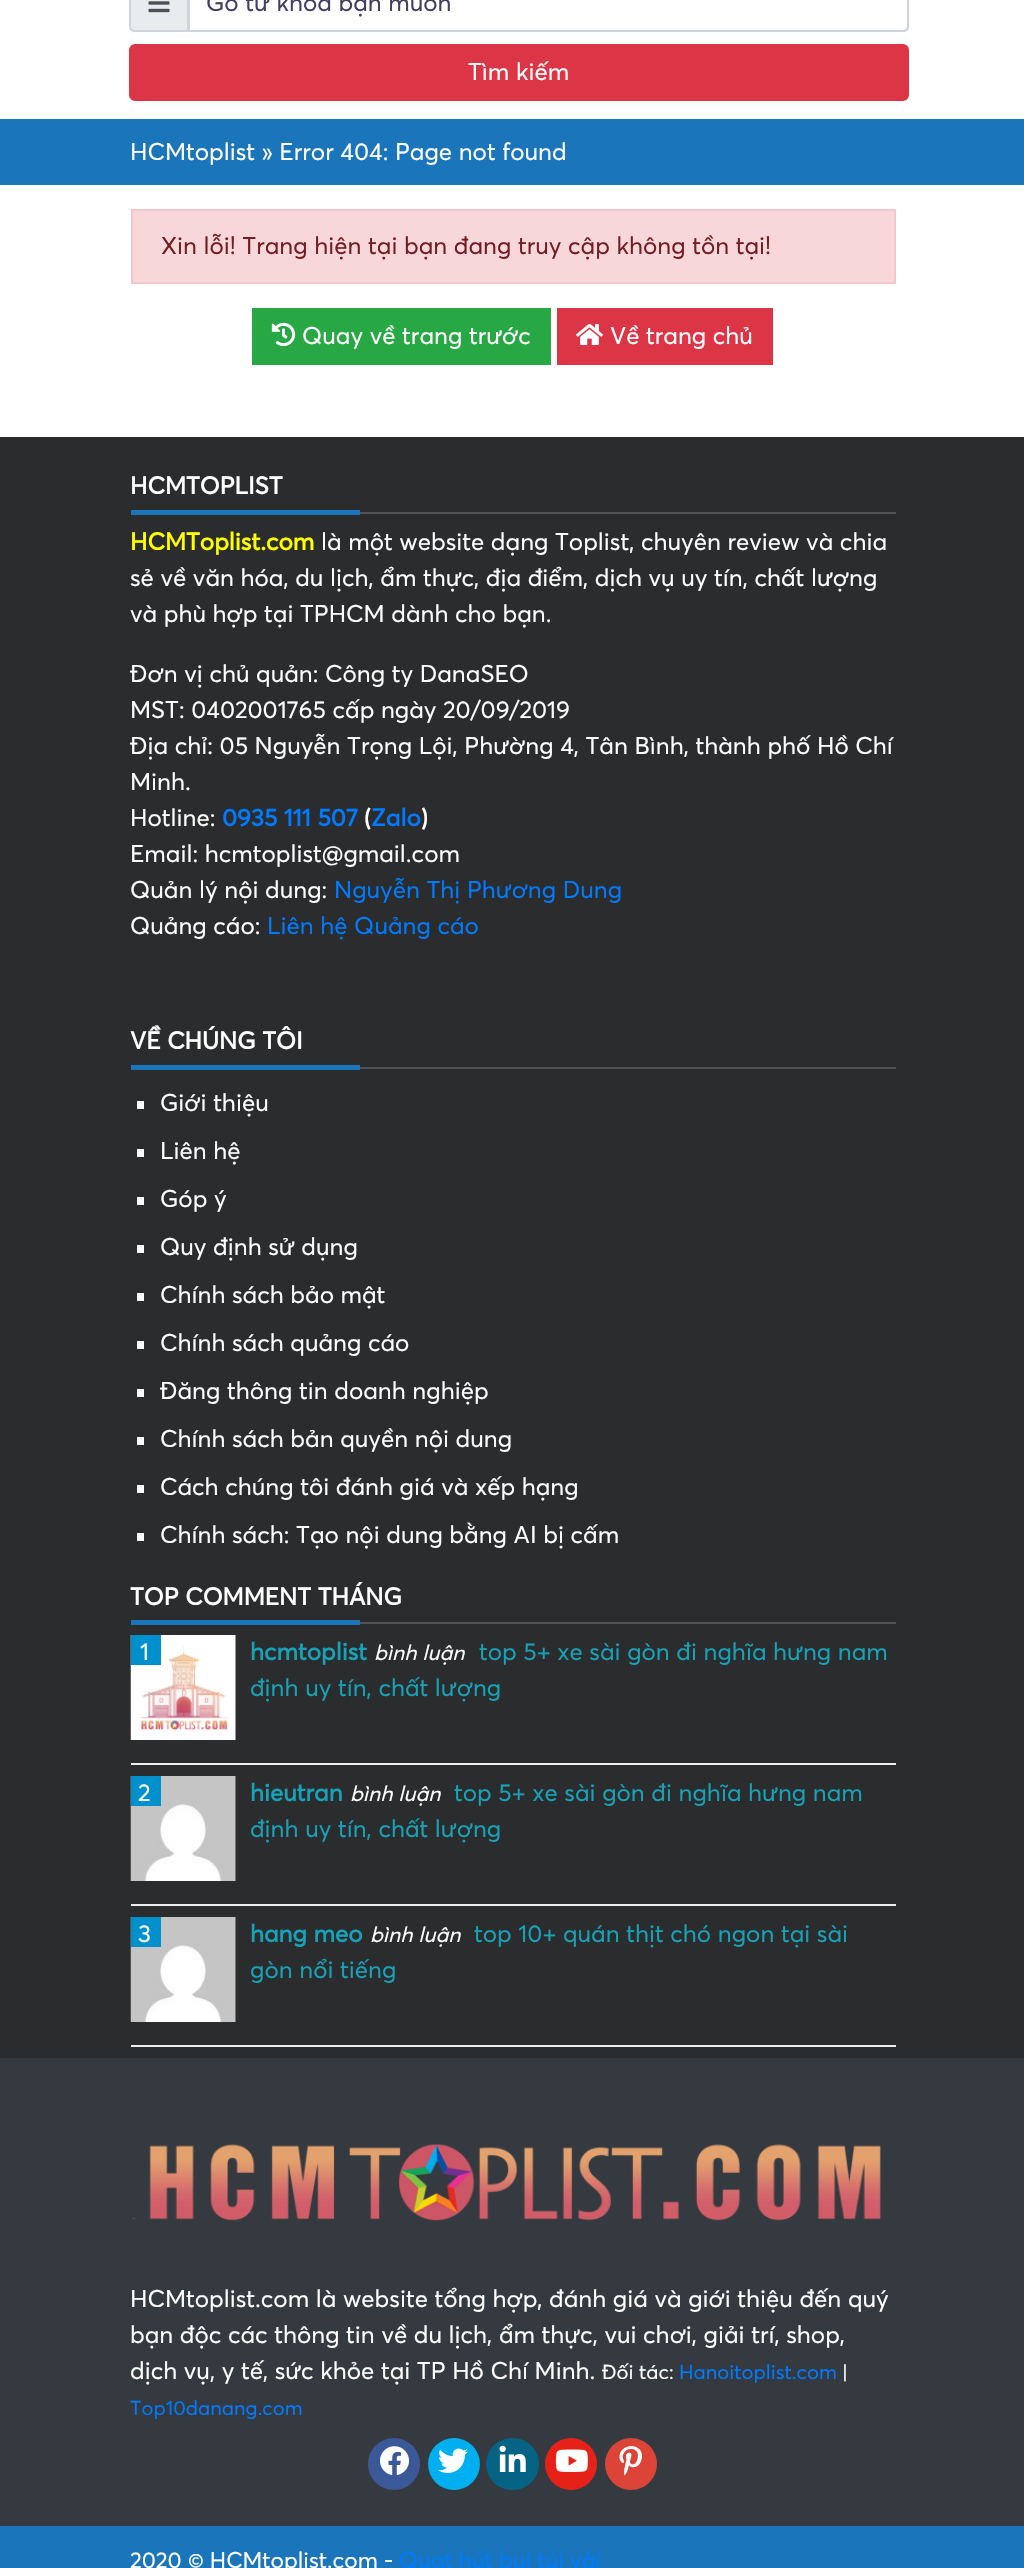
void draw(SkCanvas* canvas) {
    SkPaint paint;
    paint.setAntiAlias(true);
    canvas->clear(0xFFFFFFFF);
    paint.setColor(0xFFE9ECEF);
    canvas->drawPath(SkPathBuilder().moveTo(135, -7).lineTo(188, -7).lineTo(188, 31).lineTo(135, 31).cubicTo(132, 31, 130, 29, 130, 26).lineTo(130, -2).cubicTo(130, -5, 132, -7, 135, -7).close().detach(), paint);
    paint.setStyle(SkPaint::kStroke_Style);
    paint.setStrokeWidth(2);
    paint.setColor(0xFFCED4DA);
    canvas->drawPath(SkPathBuilder().moveTo(135, -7).lineTo(188, -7).lineTo(188, 31).lineTo(135, 31).cubicTo(132, 31, 130, 29, 130, 26).lineTo(130, -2).cubicTo(130, -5, 132, -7, 135, -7).close().detach(), paint);
    canvas->drawImageRect(SkImages::DeferredFromEncodedData(SkData::MakeFromFileName("img1.png")), SkRect::MakeXYWH(148, 1, 22, 12), SkSamplingOptions());
    canvas->drawPath(SkPathBuilder().moveTo(189, -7).lineTo(903, -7).cubicTo(906, -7, 908, -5, 908, -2).lineTo(908, 26).cubicTo(908, 29, 906, 31, 903, 31).lineTo(189, 31).close().detach(), paint);
    SkFont font1(fontMgr->matchFamilyStyle("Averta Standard", SkFontStyle::Normal()), 24);
    font1.setSubpixel(true);
    paint.setStyle(SkPaint::kFill_Style);
    paint.setColor(0xFF423E60);
    canvas->drawString("Gõ từ khóa bạn muốn", 206, 11, font1, paint);
    paint.setColor(0xFFDC3545);
    canvas->drawRoundRect(SkRect::MakeXYWH(130, 45, 778, 55), 5, 5, paint);
    paint.setStyle(SkPaint::kStroke_Style);
    canvas->drawRoundRect(SkRect::MakeXYWH(130, 45, 778, 55), 5, 5, paint);
    paint.setStyle(SkPaint::kFill_Style);
    paint.setColor(0xFFFFFFFF);
    canvas->drawString("Tìm kiếm", 468, 80, font1, paint);
    paint.setColor(0xFF1B75BB);
    canvas->drawRect(SkRect::MakeXYWH(0, 119, 1024, 66), paint);
    paint.setColor(0xFFFFFFFF);
    canvas->drawString("HCMtoplist » Error 404: Page not found", 130, 160, font1, paint);
    paint.setColor(0xFFF8D7DA);
    canvas->drawRect(SkRect::MakeXYWH(132, 210, 763, 73), paint);
    paint.setStyle(SkPaint::kStroke_Style);
    paint.setColor(0xFFF5C6CB);
    canvas->drawRect(SkRect::MakeXYWH(132, 210, 763, 73), paint);
    paint.setStyle(SkPaint::kFill_Style);
    paint.setColor(0xFF721C24);
    canvas->drawString("Xin lỗi! Trang hiện tại bạn đang truy cập không tồn tại!", 161, 254, font1, paint);
    paint.setColor(0xFF28A745);
    canvas->drawRect(SkRect::MakeXYWH(252, 308, 299, 57), paint);
    canvas->drawImageRect(SkImages::DeferredFromEncodedData(SkData::MakeFromFileName("img2.png")), SkRect::MakeXYWH(271, 322, 25, 25), SkSamplingOptions());
    paint.setColor(0xFFFFFFFF);
    canvas->drawString("Quay về trang trước", 302, 344, font1, paint);
    paint.setColor(0xFFDC3545);
    canvas->drawRect(SkRect::MakeXYWH(557, 308, 216, 57), paint);
    canvas->drawImageRect(SkImages::DeferredFromEncodedData(SkData::MakeFromFileName("img3.png")), SkRect::MakeXYWH(576, 324, 27, 21), SkSamplingOptions());
    paint.setColor(0xFFFFFFFF);
    canvas->drawString("Về trang chủ", 610, 344, font1, paint);
    paint.setColor(0xFF2B2C2D);
    canvas->drawRect(SkRect::MakeXYWH(0, 437, 1024, 1621), paint);
    SkFont font2(fontMgr->matchFamilyStyle("Averta Standard", SkFontStyle::Bold()), 24);
    font2.setSubpixel(true);
    paint.setColor(0xFFFFFFFF);
    canvas->drawString("HCMTOPLIST", 130, 494, font2, paint);
    paint.setColor(0xFF1B75BB);
    canvas->drawRect(SkRect::MakeXYWH(131, 510, 229, 5), paint);
    paint.setColor(0xFF535455);
    canvas->drawRect(SkRect::MakeXYWH(360, 512, 536, 2), paint);
    paint.setColor(0xFFFFFF00);
    canvas->drawString("HCMToplist.com", 130, 550, font2, paint);
    paint.setColor(0xFFFFFFFF);
    canvas->drawString("là một website dạng Toplist, chuyên review và chia", 321, 550, font1, paint);
    canvas->drawString("sẻ về văn hóa, du lịch, ẩm thực, địa điểm, dịch vụ uy tín, chất lượng", 130, 586, font1, paint);
    canvas->drawString("và phù hợp tại TPHCM dành cho bạn.", 130, 622, font1, paint);
    canvas->drawString("Đơn vị chủ quản: Công ty DanaSEO", 130, 682, font1, paint);
    canvas->drawString("MST: 0402001765 cấp ngày 20/09/2019", 130, 718, font1, paint);
    canvas->drawString("Địa chỉ: 05 Nguyễn Trọng Lội, Phường 4, Tân Bình, thành phố Hồ Chí", 130, 754, font1, paint);
    canvas->drawString("Minh.", 130, 790, font1, paint);
    canvas->drawString("Hotline:", 130, 826, font1, paint);
    paint.setColor(0xFF007BFF);
    canvas->drawString("0935 111 507", 222, 826, font2, paint);
    paint.setColor(0xFFFFFFFF);
    canvas->drawString("(", 364, 826, font2, paint);
    paint.setColor(0xFF007BFF);
    canvas->drawString("Zalo", 371, 826, font2, paint);
    paint.setColor(0xFFFFFFFF);
    canvas->drawString(")", 421, 826, font2, paint);
    canvas->drawString("Email: hcmtoplist@gmail.com", 130, 862, font1, paint);
    canvas->drawString("Quản lý nội dung:", 130, 898, font1, paint);
    paint.setColor(0xFF007BFF);
    canvas->drawString("Nguyễn Thị Phương Dung", 334, 898, font1, paint);
    paint.setColor(0xFFFFFFFF);
    canvas->drawString("Quảng cáo:", 130, 934, font1, paint);
    paint.setColor(0xFF007BFF);
    canvas->drawString("Liên hệ Quảng cáo", 267, 934, font1, paint);
    paint.setColor(0xFFFFFFFF);
    canvas->drawString("VỀ CHÚNG TÔI", 130, 1049, font2, paint);
    paint.setColor(0xFF1B75BB);
    canvas->drawRect(SkRect::MakeXYWH(131, 1065, 229, 5), paint);
    paint.setColor(0xFF535455);
    canvas->drawRect(SkRect::MakeXYWH(360, 1067, 536, 2), paint);
    paint.setColor(0xFFFFFFFF);
    canvas->drawRect(SkRect::MakeXYWH(137, 1101, 7, 8), paint);
    canvas->drawString("Giới thiệu", 160, 1111, font1, paint);
    canvas->drawRect(SkRect::MakeXYWH(137, 1149, 7, 8), paint);
    canvas->drawString("Liên hệ", 160, 1159, font1, paint);
    canvas->drawRect(SkRect::MakeXYWH(137, 1197, 7, 8), paint);
    canvas->drawString("Góp ý", 160, 1207, font1, paint);
    canvas->drawRect(SkRect::MakeXYWH(137, 1245, 7, 8), paint);
    canvas->drawString("Quy định sử dụng", 160, 1255, font1, paint);
    canvas->drawRect(SkRect::MakeXYWH(137, 1293, 7, 8), paint);
    canvas->drawString("Chính sách bảo mật", 160, 1303, font1, paint);
    canvas->drawRect(SkRect::MakeXYWH(137, 1341, 7, 8), paint);
    canvas->drawString("Chính sách quảng cáo", 160, 1351, font1, paint);
    canvas->drawRect(SkRect::MakeXYWH(137, 1389, 7, 8), paint);
    canvas->drawString("Đăng thông tin doanh nghiệp", 160, 1399, font1, paint);
    canvas->drawRect(SkRect::MakeXYWH(137, 1437, 7, 8), paint);
    canvas->drawString("Chính sách bản quyền nội dung", 160, 1447, font1, paint);
    canvas->drawRect(SkRect::MakeXYWH(137, 1485, 7, 8), paint);
    canvas->drawString("Cách chúng tôi đánh giá và xếp hạng", 160, 1495, font1, paint);
    canvas->drawRect(SkRect::MakeXYWH(137, 1533, 7, 8), paint);
    canvas->drawString("Chính sách: Tạo nội dung bằng AI bị cấm", 160, 1543, font1, paint);
    canvas->drawString("TOP COMMENT THÁNG", 130, 1605, font2, paint);
    paint.setColor(0xFF1B75BB);
    canvas->drawRect(SkRect::MakeXYWH(131, 1620, 229, 5), paint);
    paint.setColor(0xFF535455);
    canvas->drawRect(SkRect::MakeXYWH(360, 1622, 536, 2), paint);
    paint.setColor(0xFFEEEEEE);
    canvas->drawRect(SkRect::MakeXYWH(131, 1763, 765, 2), paint);
    canvas->drawImageRect(SkImages::DeferredFromEncodedData(SkData::MakeFromFileName("img4.png")), SkRect::MakeXYWH(130, 1635, 106, 105), SkSamplingOptions());
    paint.setColor(0xFF0090CD);
    canvas->drawRect(SkRect::MakeXYWH(131, 1635, 30, 30), paint);
    paint.setColor(0xFFFFFFFF);
    canvas->drawString("1", 140, 1660, font1, paint);
    paint.setColor(0xFF17A2B8);
    canvas->drawString("hcmtoplist", 250, 1660, font2, paint);
    SkFont font3(fontMgr->matchFamilyStyle("Averta Standard", SkFontStyle::Italic()), 21);
    font3.setSubpixel(true);
    paint.setColor(0xFFFFFFFF);
    canvas->drawString("bình luận", 374, 1660, font3, paint);
    paint.setColor(0xFF17A2B8);
    canvas->drawString("top 5+ xe sài gòn đi nghĩa hưng nam", 479, 1660, font1, paint);
    canvas->drawString("định uy tín, chất lượng", 250, 1696, font1, paint);
    paint.setColor(0xFFEEEEEE);
    canvas->drawRect(SkRect::MakeXYWH(131, 1904, 765, 2), paint);
    canvas->drawImageRect(SkImages::DeferredFromEncodedData(SkData::MakeFromFileName("img5.png")), SkRect::MakeXYWH(130, 1776, 106, 105), SkSamplingOptions());
    paint.setColor(0xFF0090CD);
    canvas->drawRect(SkRect::MakeXYWH(131, 1776, 30, 30), paint);
    paint.setColor(0xFFFFFFFF);
    canvas->drawString("2", 138, 1801, font1, paint);
    paint.setColor(0xFF17A2B8);
    canvas->drawString("hieutran", 250, 1801, font2, paint);
    paint.setColor(0xFFFFFFFF);
    canvas->drawString("bình luận", 350, 1801, font3, paint);
    paint.setColor(0xFF17A2B8);
    canvas->drawString("top 5+ xe sài gòn đi nghĩa hưng nam", 454, 1801, font1, paint);
    canvas->drawString("định uy tín, chất lượng", 250, 1837, font1, paint);
    paint.setColor(0xFFEEEEEE);
    canvas->drawRect(SkRect::MakeXYWH(131, 2045, 765, 2), paint);
    canvas->drawImageRect(SkImages::DeferredFromEncodedData(SkData::MakeFromFileName("img5.png")), SkRect::MakeXYWH(130, 1917, 106, 105), SkSamplingOptions());
    paint.setColor(0xFF0090CD);
    canvas->drawRect(SkRect::MakeXYWH(131, 1917, 30, 30), paint);
    paint.setColor(0xFFFFFFFF);
    canvas->drawString("3", 138, 1942, font1, paint);
    paint.setColor(0xFF17A2B8);
    canvas->drawString("hang meo", 250, 1942, font2, paint);
    paint.setColor(0xFFFFFFFF);
    canvas->drawString("bình luận", 370, 1942, font3, paint);
    paint.setColor(0xFF17A2B8);
    canvas->drawString("top 10+ quán thịt chó ngon tại sài", 474, 1942, font1, paint);
    canvas->drawString("gòn nổi tiếng", 250, 1978, font1, paint);
    paint.setColor(0xFF343A40);
    canvas->drawRect(SkRect::MakeXYWH(0, 2058, 1024, 468), paint);
    canvas->drawImageRect(SkImages::DeferredFromEncodedData(SkData::MakeFromFileName("img6.png")), SkRect::MakeXYWH(132, 2144, 749, 77), SkSamplingOptions());
    paint.setColor(0xFFFFFFFF);
    canvas->drawString("HCMtoplist.com là website tổng hợp, đánh giá và giới thiệu đến quý", 130, 2307, font1, paint);
    canvas->drawString("bạn độc các thông tin về du lịch, ẩm thực, vui chơi, giải trí, shop,", 130, 2343, font1, paint);
    canvas->drawString("dịch vụ, y tế, sức khỏe tại TP Hồ Chí Minh.", 130, 2379, font1, paint);
    SkFont font4(fontMgr->matchFamilyStyle("Averta Standard", SkFontStyle::Normal()), 20);
    font4.setSubpixel(true);
    canvas->drawString("Đối tác:", 602, 2379, font4, paint);
    paint.setColor(0xFF007BFF);
    canvas->drawString("Hanoitoplist.com", 679, 2379, font4, paint);
    paint.setColor(0xFFFFFFFF);
    canvas->drawString("|", 842, 2379, font4, paint);
    paint.setColor(0xFF007BFF);
    canvas->drawString("Top10danang.com", 130, 2415, font4, paint);
    paint.setColor(0xFF3B5998);
    canvas->drawCircle(394, 2464, 26, paint);
    canvas->drawImageRect(SkImages::DeferredFromEncodedData(SkData::MakeFromFileName("img7.png")), SkRect::MakeXYWH(380, 2446, 29, 29), SkSamplingOptions());
    paint.setColor(0xFF00AFF0);
    canvas->drawCircle(454, 2464, 26, paint);
    canvas->drawImageRect(SkImages::DeferredFromEncodedData(SkData::MakeFromFileName("img8.png")), SkRect::MakeXYWH(438, 2448, 30, 25), SkSamplingOptions());
    paint.setColor(0xFF056386);
    canvas->drawRoundRect(SkRect::MakeXYWH(486, 2438, 53, 52), 26, 26, paint);
    canvas->drawImageRect(SkImages::DeferredFromEncodedData(SkData::MakeFromFileName("img9.png")), SkRect::MakeXYWH(499, 2445, 27, 27), SkSamplingOptions());
    paint.setColor(0xFFE62117);
    canvas->drawCircle(571, 2464, 26, paint);
    canvas->drawImageRect(SkImages::DeferredFromEncodedData(SkData::MakeFromFileName("img10.png")), SkRect::MakeXYWH(555, 2449, 33, 23), SkSamplingOptions());
    paint.setColor(0xFFDB4437);
    canvas->drawCircle(631, 2464, 26, paint);
    canvas->drawImageRect(SkImages::DeferredFromEncodedData(SkData::MakeFromFileName("img11.png")), SkRect::MakeXYWH(619, 2446, 23, 30), SkSamplingOptions());
    paint.setColor(0xFF1B75BB);
    canvas->drawRect(SkRect::MakeXYWH(0, 2526, 1024, 42), paint);
    SkFont font5(fontMgr->matchFamilyStyle("Averta Standard", SkFontStyle::Normal()), 22.5f);
    font5.setSubpixel(true);
    paint.setColor(0xFFFFFFFF);
    canvas->drawString("2020 © HCMtoplist.com -", 130, 2568, font5, paint);
    paint.setColor(0xFF007BFF);
    canvas->drawString("Quạt hút bụi túi vải", 399, 2568, font5, paint);
}
